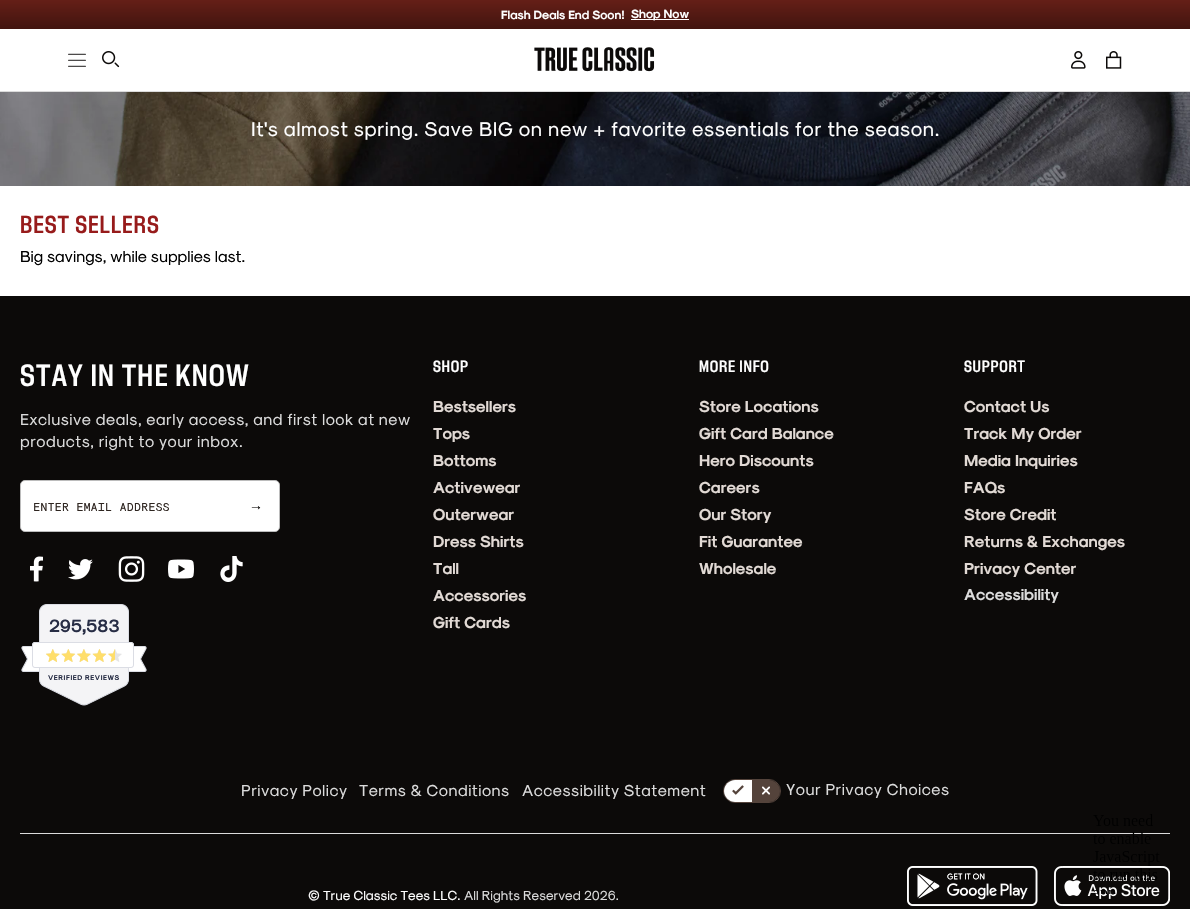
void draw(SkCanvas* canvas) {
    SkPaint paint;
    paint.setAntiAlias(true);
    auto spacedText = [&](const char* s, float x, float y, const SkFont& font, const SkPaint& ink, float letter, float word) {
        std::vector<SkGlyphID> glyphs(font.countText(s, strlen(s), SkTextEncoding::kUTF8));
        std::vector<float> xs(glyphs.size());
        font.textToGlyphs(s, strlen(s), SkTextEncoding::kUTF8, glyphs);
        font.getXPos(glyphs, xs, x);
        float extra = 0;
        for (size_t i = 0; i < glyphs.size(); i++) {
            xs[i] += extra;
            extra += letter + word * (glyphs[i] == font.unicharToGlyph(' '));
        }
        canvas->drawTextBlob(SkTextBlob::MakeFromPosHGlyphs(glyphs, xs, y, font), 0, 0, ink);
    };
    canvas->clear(0xFFFFFFFF);
    {
        const SkColor colors[] = {0xFF651F17, 0xFF41140F};
        const float stops[] = {0, 1};
        const SkPoint ends[] = {{595, 0}, {595, 29}};
        paint.setShader(SkGradientShader::MakeLinear(ends, colors, stops, 2, SkTileMode::kClamp));
        paint.setAlpha(255);
    }
    canvas->drawRect(SkRect::MakeXYWH(0, 0, 1190, 29), paint);
    SkFont font1(fontMgr->matchFamilyStyle("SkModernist", SkFontStyle::Bold()), 12);
    font1.setSubpixel(true);
    paint.setShader(nullptr);
    paint.setColor(0xFFFFFFFF);
    canvas->drawString("Flash Deals End Soon!", 501, 19, font1, paint);
    canvas->drawRect(SkRect::MakeXYWH(631, 19, 58, 1), paint);
    canvas->drawString("Shop Now", 631, 18, font1, paint);
    paint.setColor(0xFFDBDBDB);
    canvas->drawRect(SkRect::MakeXYWH(0, 91, 1190, 1), paint);
    canvas->drawImageRect(SkImages::DeferredFromEncodedData(SkData::MakeFromFileName("img1.png")), SkRect::MakeXYWH(68, 53, 18, 14), SkSamplingOptions());
    canvas->drawImageRect(SkImages::DeferredFromEncodedData(SkData::MakeFromFileName("img2.png")), SkRect::MakeXYWH(102, 51, 18, 17), SkSamplingOptions());
    canvas->drawImageRect(SkImages::DeferredFromEncodedData(SkData::MakeFromFileName("img3.png")), SkRect::MakeXYWH(534, 47, 121, 25), SkSamplingOptions());
    canvas->drawImageRect(SkImages::DeferredFromEncodedData(SkData::MakeFromFileName("img4.png")), SkRect::MakeXYWH(1071, 51, 15, 18), SkSamplingOptions());
    canvas->drawImageRect(SkImages::DeferredFromEncodedData(SkData::MakeFromFileName("img5.png")), SkRect::MakeXYWH(1106, 51, 16, 18), SkSamplingOptions());
    canvas->drawImageRect(SkImages::DeferredFromEncodedData(SkData::MakeFromFileName("img6.png")), SkRect::MakeXYWH(0, 92, 1190, 94), SkSamplingOptions());
    SkFont font2(fontMgr->matchFamilyStyle("SkModernist", SkFontStyle::Normal()), 20);
    font2.setSubpixel(true);
    paint.setColor(0xFFFFFFFF);
    spacedText("It's almost spring. Save BIG on new + favorite essentials for the season.", 251, 136, font2, paint, 0.6f, 0);
    SkFont font3(fontMgr->matchFamilyStyle("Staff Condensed", SkFontStyle(500, SkFontStyle::kNormal_Width, SkFontStyle::kUpright_Slant)), 24);
    font3.setSubpixel(true);
    paint.setColor(0xFF971B1B);
    spacedText("BEST SELLERS", 20, 233, font3, paint, 1, 0);
    SkFont font4(fontMgr->matchFamilyStyle("SkModernist", SkFontStyle::Normal()), 16);
    font4.setSubpixel(true);
    paint.setColor(0xFF000000);
    canvas->drawString("Big savings, while supplies last.", 20, 262, font4, paint);
    paint.setColor(0xFF0C0A09);
    canvas->drawRect(SkRect::MakeXYWH(0, 296, 1190, 613), paint);
    SkFont font5(fontMgr->matchFamilyStyle("Staff Condensed", SkFontStyle(500, SkFontStyle::kNormal_Width, SkFontStyle::kUpright_Slant)), 30);
    font5.setSubpixel(true);
    paint.setColor(0xFFFFFFFF);
    spacedText("STAY IN THE KNOW", 20, 386, font5, paint, 1.25f, 0);
    paint.setColor(0xFFDBDBDB);
    spacedText("Exclusive deals, early access, and first look at new", 20, 425, font4, paint, 0.48f, 0);
    spacedText("products, right to your inbox.", 20, 447, font4, paint, 0.48f, 0);
    paint.setColor(0xFFFFFFFF);
    canvas->drawRoundRect(SkRect::MakeXYWH(20.5f, 480.5f, 259, 51), 4.5f, 4.5f, paint);
    paint.setStyle(SkPaint::kStroke_Style);
    paint.setStrokeWidth(1);
    paint.setColor(0xFFBCBCBC);
    canvas->drawRoundRect(SkRect::MakeXYWH(20.5f, 480.5f, 259, 51), 4.5f, 4.5f, paint);
    SkFont font6(fontMgr->matchFamilyStyle("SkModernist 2", SkFontStyle::Normal()), 11.5f);
    font6.setSubpixel(true);
    paint.setStyle(SkPaint::kFill_Style);
    paint.setColor(0xFF2E2520);
    canvas->drawString("ENTER EMAIL ADDRESS", 33, 511, font6, paint);
    SkFont font7(fontMgr->matchFamilyStyle("Liberation Sans", SkFontStyle::Normal()), 14);
    font7.setSubpixel(true);
    paint.setColor(0xFF0C0A09);
    canvas->drawString("→", 249, 510, font7, paint);
    canvas->drawImageRect(SkImages::DeferredFromEncodedData(SkData::MakeFromFileName("img7.png")), SkRect::MakeXYWH(30, 556, 13, 26), SkSamplingOptions());
    canvas->drawImageRect(SkImages::DeferredFromEncodedData(SkData::MakeFromFileName("img8.png")), SkRect::MakeXYWH(68, 559, 25, 21), SkSamplingOptions());
    canvas->drawImageRect(SkImages::DeferredFromEncodedData(SkData::MakeFromFileName("img9.png")), SkRect::MakeXYWH(118, 556, 27, 26), SkSamplingOptions());
    canvas->drawImageRect(SkImages::DeferredFromEncodedData(SkData::MakeFromFileName("img10.png")), SkRect::MakeXYWH(168, 559, 26, 20), SkSamplingOptions());
    canvas->drawImageRect(SkImages::DeferredFromEncodedData(SkData::MakeFromFileName("img11.png")), SkRect::MakeXYWH(220, 556, 23, 26), SkSamplingOptions());
    canvas->drawImageRect(SkImages::DeferredFromEncodedData(SkData::MakeFromFileName("img12.png")), SkRect::MakeXYWH(21, 604, 126, 102), SkSamplingOptions());
    SkFont font8(fontMgr->matchFamilyStyle("SkModernist", SkFontStyle::Bold()), 18);
    font8.setSubpixel(true);
    paint.setColor(0xFF272D45);
    canvas->drawString("295,583", 49, 632, font8, paint);
    canvas->drawImageRect(SkImages::DeferredFromEncodedData(SkData::MakeFromFileName("img13.png")), SkRect::MakeXYWH(46, 649, 76, 13), SkSamplingOptions());
    canvas->drawImageRect(SkImages::DeferredFromEncodedData(SkData::MakeFromFileName("img14.png")), SkRect::MakeXYWH(46, 649, 69, 13), SkSamplingOptions());
    SkFont font9(fontMgr->matchFamilyStyle("SkModernist", SkFontStyle::Bold()), 7);
    font9.setSubpixel(true);
    spacedText("VERIFIED REVIEWS", 48, 680, font9, paint, 0.6f, 0);
    SkFont font10(fontMgr->matchFamilyStyle("Staff Condensed", SkFontStyle(500, SkFontStyle::kNormal_Width, SkFontStyle::kUpright_Slant)), 16);
    font10.setSubpixel(true);
    paint.setColor(0xFFFFFFFF);
    spacedText("SHOP", 433, 372, font10, paint, 0.75f, 0);
    SkFont font11(fontMgr->matchFamilyStyle("SkModernist", SkFontStyle::Bold()), 16);
    font11.setSubpixel(true);
    paint.setColor(0xFFE2DAD5);
    canvas->drawString("Bestsellers", 433, 412, font11, paint);
    canvas->drawString("Tops", 433, 439, font11, paint);
    canvas->drawString("Bottoms", 433, 466, font11, paint);
    canvas->drawString("Activewear", 433, 493, font11, paint);
    canvas->drawString("Outerwear", 433, 520, font11, paint);
    canvas->drawString("Dress Shirts", 433, 547, font11, paint);
    canvas->drawString("Tall", 433, 574, font11, paint);
    canvas->drawString("Accessories", 433, 601, font11, paint);
    canvas->drawString("Gift Cards", 433, 628, font11, paint);
    paint.setColor(0xFFFFFFFF);
    spacedText("MORE INFO", 699, 372, font10, paint, 0.75f, 0);
    paint.setColor(0xFFE2DAD5);
    canvas->drawString("Store Locations", 699, 412, font11, paint);
    canvas->drawString("Gift Card Balance", 699, 439, font11, paint);
    canvas->drawString("Hero Discounts", 699, 466, font11, paint);
    canvas->drawString("Careers", 699, 493, font11, paint);
    canvas->drawString("Our Story", 699, 520, font11, paint);
    canvas->drawString("Fit Guarantee", 699, 547, font11, paint);
    canvas->drawString("Wholesale", 699, 574, font11, paint);
    paint.setColor(0xFFFFFFFF);
    spacedText("SUPPORT", 964, 372, font10, paint, 0.75f, 0);
    paint.setColor(0xFFE2DAD5);
    canvas->drawString("Contact Us", 964, 412, font11, paint);
    canvas->drawString("Track My Order", 964, 439, font11, paint);
    canvas->drawString("Media Inquiries", 964, 466, font11, paint);
    canvas->drawString("FAQs", 964, 493, font11, paint);
    canvas->drawString("Store Credit", 964, 520, font11, paint);
    canvas->drawString("Returns & Exchanges", 964, 547, font11, paint);
    canvas->drawString("Privacy Center", 964, 574, font11, paint);
    paint.setColor(0xFFDBDBDB);
    canvas->drawString("Accessibility", 964, 600, font11, paint);
    spacedText("Privacy Policy", 241, 796, font4, paint, 0.48f, 0);
    spacedText("Terms & Conditions", 359, 796, font4, paint, 0.48f, 0);
    spacedText("Accessibility Statement", 522, 796, font4, paint, 0.48f, 0);
    paint.setStyle(SkPaint::kStroke_Style);
    paint.setColor(0xFF54433B);
    canvas->drawRoundRect(SkRect::MakeXYWH(723.5f, 779.5f, 57, 23), 11.5f, 11.5f, paint);
    paint.setStyle(SkPaint::kFill_Style);
    paint.setColor(0xFFFFFFFF);
    canvas->drawPath(SkPathBuilder().moveTo(735, 780).lineTo(752, 780).lineTo(752, 802).lineTo(735, 802).cubicTo(729, 802, 724, 797, 724, 791).cubicTo(724, 785, 729, 780, 735, 780).close().detach(), paint);
    canvas->drawImageRect(SkImages::DeferredFromEncodedData(SkData::MakeFromFileName("img15.png")), SkRect::MakeXYWH(732, 785, 12, 10), SkSamplingOptions());
    paint.setColor(0xFF54433B);
    canvas->drawPath(SkPathBuilder().moveTo(752, 780).lineTo(769, 780).cubicTo(775, 780, 780, 785, 780, 791).cubicTo(780, 797, 775, 802, 769, 802).lineTo(752, 802).close().detach(), paint);
    canvas->drawImageRect(SkImages::DeferredFromEncodedData(SkData::MakeFromFileName("img16.png")), SkRect::MakeXYWH(762, 786, 8, 9), SkSamplingOptions());
    paint.setColor(0xFFDBDBDB);
    spacedText("Your Privacy Choices", 786, 795, font4, paint, 0.48f, 0);
    canvas->drawRect(SkRect::MakeXYWH(20, 833, 1150, 1), paint);
    SkFont font12(fontMgr->matchFamilyStyle("SkModernist", SkFontStyle::Normal()), 13.25f);
    font12.setSubpixel(true);
    paint.setColor(0xFFFFFFFF);
    canvas->drawString("© True Classic Tees LLC.", 308, 900, font12, paint);
    paint.setColor(0xFFDBDBDB);
    canvas->drawString("All Rights Reserved 2026.", 464, 900, font12, paint);
    canvas->drawImageRect(SkImages::DeferredFromEncodedData(SkData::MakeFromFileName("img17.png")), SkRect::MakeXYWH(907, 866, 131, 40), SkSamplingOptions());
    canvas->drawImageRect(SkImages::DeferredFromEncodedData(SkData::MakeFromFileName("img18.png")), SkRect::MakeXYWH(1054, 866, 116, 40), SkSamplingOptions());
    canvas->drawImageRect(SkImages::DeferredFromEncodedData(SkData::MakeFromFileName("img19.png")), SkRect::MakeXYWH(1093, 814, 67, 80), SkSamplingOptions());
}
